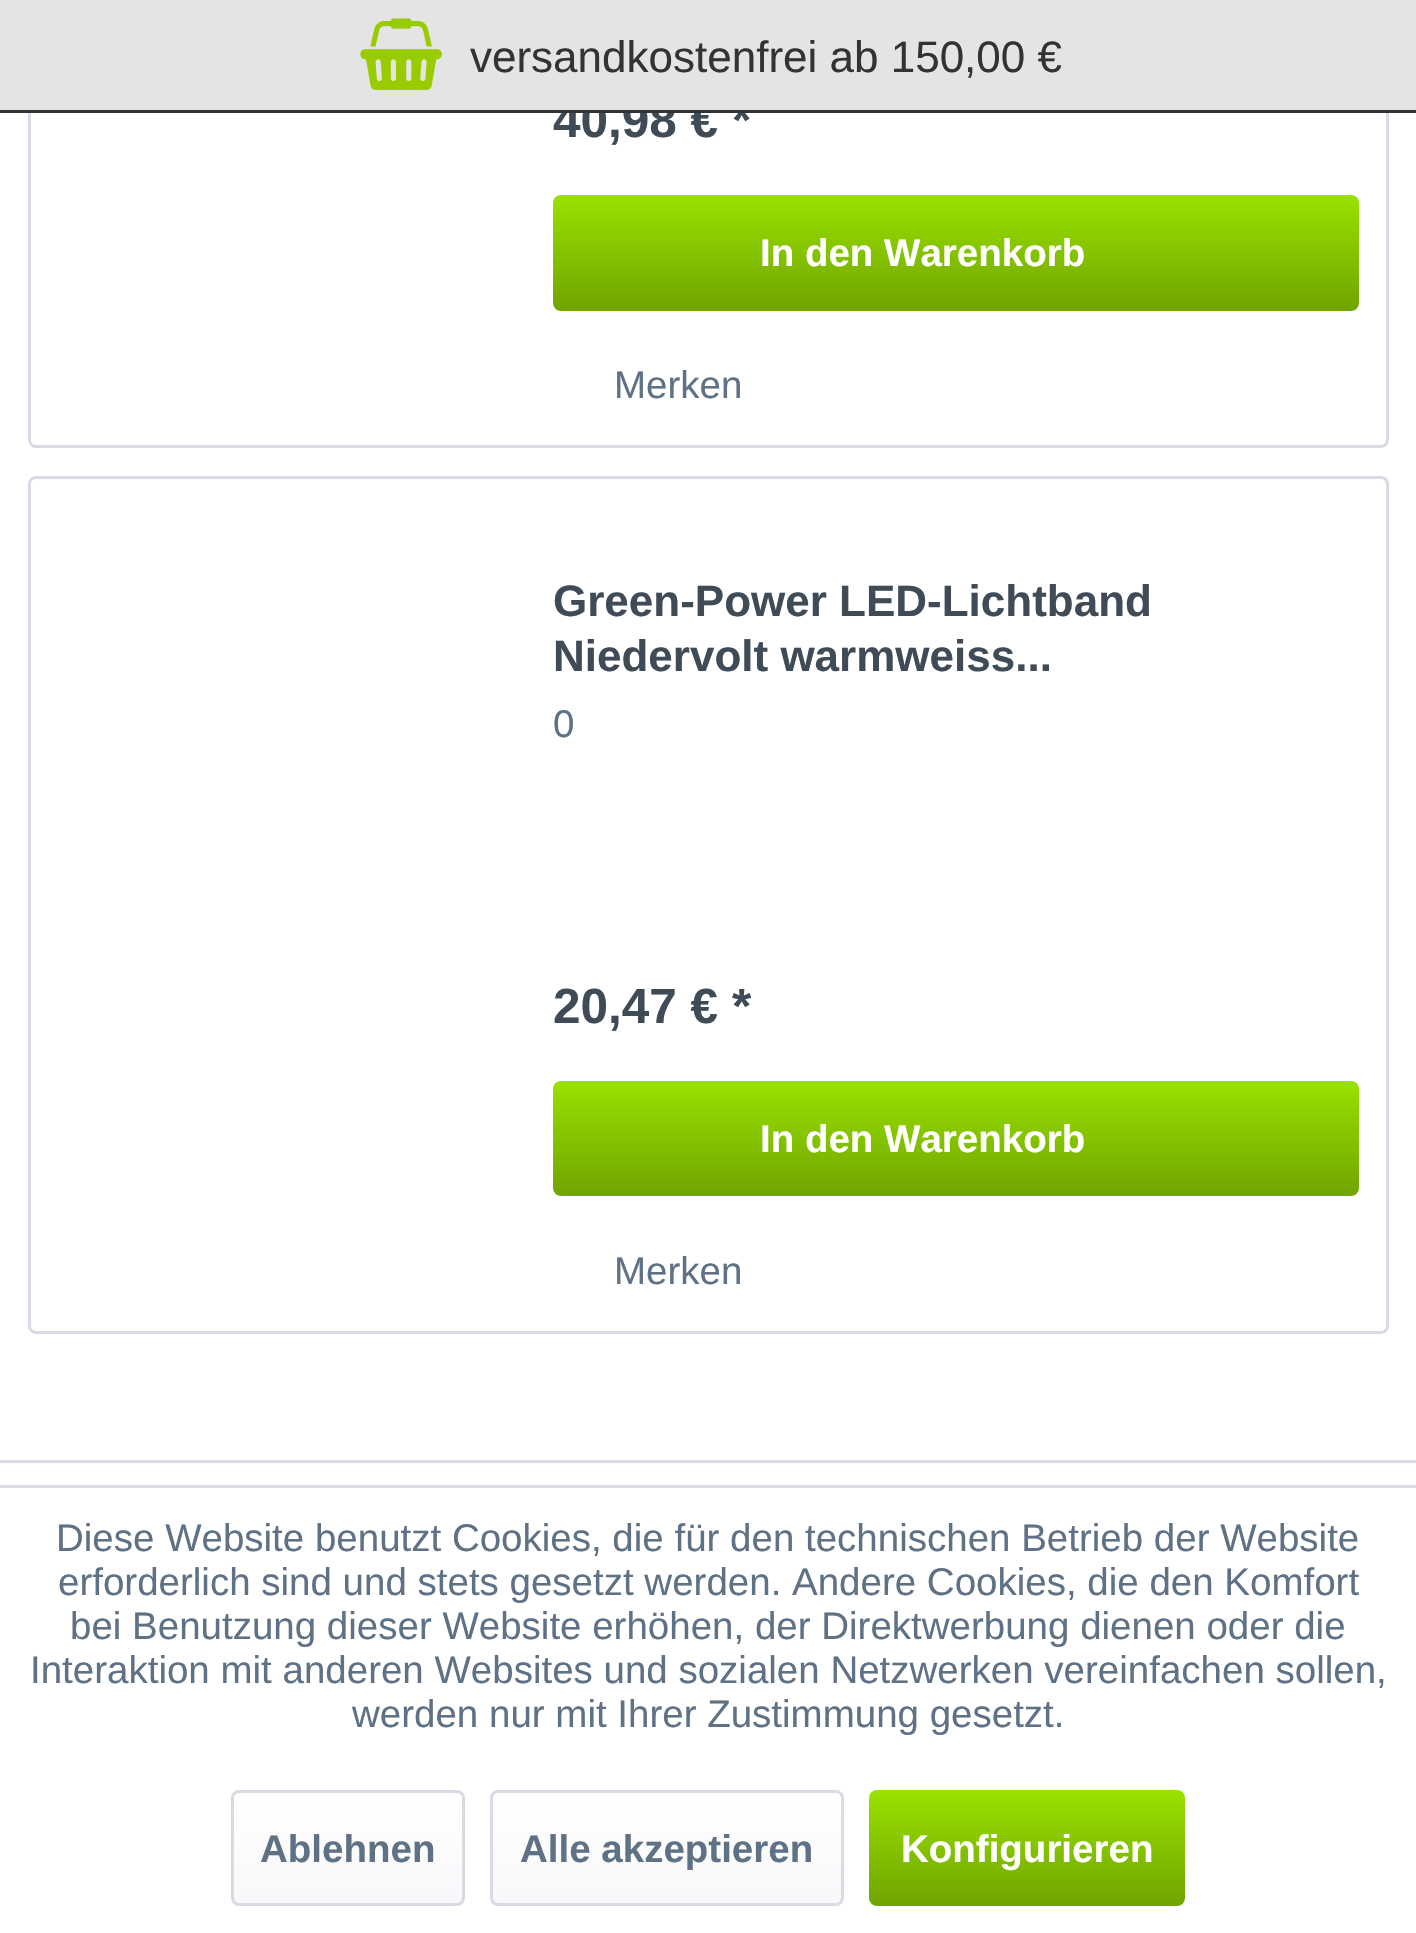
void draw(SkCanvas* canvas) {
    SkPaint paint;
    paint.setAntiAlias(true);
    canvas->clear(0xFFFFFFFF);
    paint.setStyle(SkPaint::kStroke_Style);
    paint.setStrokeWidth(3);
    paint.setColor(0xFFDADAE5);
    canvas->drawRoundRect(SkRect::MakeXYWH(29.5f, -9.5f, 1358, 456), 6.5f, 6.5f, paint);
    SkFont font1(fontMgr->matchFamilyStyle("Liberation Sans", SkFontStyle::Bold()), 49.5f);
    font1.setSubpixel(true);
    paint.setStyle(SkPaint::kFill_Style);
    paint.setColor(0xFF3F4C58);
    canvas->drawString("40,98 € *", 553, 137, font1, paint);
    paint.setColor(0xFFE4E4E4);
    canvas->drawRect(SkRect::MakeXYWH(0, 0, 1416, 110), paint);
    paint.setColor(0xFF333333);
    canvas->drawRect(SkRect::MakeXYWH(0, 110, 1416, 3), paint);
    canvas->drawImageRect(SkImages::DeferredFromEncodedData(SkData::MakeFromFileName("img1.png")), SkRect::MakeXYWH(360, 18, 82, 72), SkSamplingOptions());
    SkFont font2(fontMgr->matchFamilyStyle("Liberation Sans", SkFontStyle::Normal()), 44);
    font2.setSubpixel(true);
    canvas->drawString("versandkostenfrei ab 150,00 €", 470, 72, font2, paint);
    {
        const SkColor colors[] = {0xFF9AE100, 0xFF70A400};
        const float stops[] = {0, 1};
        const SkPoint ends[] = {{956, 195}, {956, 311}};
        paint.setShader(SkGradientShader::MakeLinear(ends, colors, stops, 2, SkTileMode::kClamp));
        paint.setAlpha(255);
    }
    canvas->drawRoundRect(SkRect::MakeXYWH(553, 195, 806, 116), 8, 8, paint);
    SkFont font3(fontMgr->matchFamilyStyle("Liberation Sans", SkFontStyle::Bold()), 38.5f);
    font3.setSubpixel(true);
    paint.setShader(nullptr);
    paint.setColor(0xFFFFFFFF);
    canvas->drawString("In den Warenkorb", 760, 266, font3, paint);
    SkFont font4(fontMgr->matchFamilyStyle("Liberation Sans", SkFontStyle::Normal()), 38.5f);
    font4.setSubpixel(true);
    paint.setColor(0xFF5F7285);
    canvas->drawString("Merken", 614, 398, font4, paint);
    paint.setStyle(SkPaint::kStroke_Style);
    paint.setColor(0xFFDADAE5);
    canvas->drawRoundRect(SkRect::MakeXYWH(29.5f, 477.5f, 1358, 855), 6.5f, 6.5f, paint);
    SkFont font5(fontMgr->matchFamilyStyle("Liberation Sans", SkFontStyle::Bold()), 44);
    font5.setSubpixel(true);
    paint.setStyle(SkPaint::kFill_Style);
    paint.setColor(0xFF3F4C58);
    canvas->drawString("Green-Power LED-Lichtband", 553, 616, font5, paint);
    canvas->drawString("Niedervolt warmweiss...", 553, 671, font5, paint);
    paint.setColor(0xFF5F7285);
    canvas->drawString("0", 553, 737, font4, paint);
    paint.setColor(0xFF3F4C58);
    canvas->drawString("20,47 € *", 553, 1023, font1, paint);
    {
        const SkColor colors[] = {0xFF9AE100, 0xFF70A400};
        const float stops[] = {0, 1};
        const SkPoint ends[] = {{956, 1081}, {956, 1196}};
        paint.setShader(SkGradientShader::MakeLinear(ends, colors, stops, 2, SkTileMode::kClamp));
        paint.setAlpha(255);
    }
    canvas->drawRoundRect(SkRect::MakeXYWH(553, 1081, 806, 115), 8, 8, paint);
    paint.setShader(nullptr);
    paint.setColor(0xFFFFFFFF);
    canvas->drawString("In den Warenkorb", 760, 1152, font3, paint);
    paint.setColor(0xFF5F7285);
    canvas->drawString("Merken", 614, 1284, font4, paint);
    paint.setColor(0xFFDADAE5);
    canvas->drawRect(SkRect::MakeXYWH(0, 1460, 1416, 3), paint);
    canvas->drawRect(SkRect::MakeXYWH(0, 1485, 1416, 3), paint);
    paint.setColor(0xFF5F7285);
    canvas->drawString("Diese Website benutzt Cookies, die für den technischen Betrieb der Website", 56, 1551, font4, paint);
    canvas->drawString("erforderlich sind und stets gesetzt werden. Andere Cookies, die den Komfort", 58, 1595, font4, paint);
    canvas->drawString("bei Benutzung dieser Website erhöhen, der Direktwerbung dienen oder die", 70, 1639, font4, paint);
    canvas->drawString("Interaktion mit anderen Websites und sozialen Netzwerken vereinfachen sollen,", 30, 1683, font4, paint);
    canvas->drawString("werden nur mit Ihrer Zustimmung gesetzt.", 352, 1727, font4, paint);
    {
        const SkColor colors[] = {0xFFFFFFFF, 0xFFF8F8FA};
        const float stops[] = {0, 1};
        const SkPoint ends[] = {{348, 1793}, {348, 1903}};
        paint.setShader(SkGradientShader::MakeLinear(ends, colors, stops, 2, SkTileMode::kClamp));
        paint.setAlpha(255);
    }
    canvas->drawRoundRect(SkRect::MakeXYWH(234, 1793, 228, 110), 6, 6, paint);
    paint.setStyle(SkPaint::kStroke_Style);
    paint.setShader(nullptr);
    paint.setColor(0xFFDADAE5);
    canvas->drawRoundRect(SkRect::MakeXYWH(232.5f, 1791.5f, 231, 113), 6.5f, 6.5f, paint);
    paint.setStyle(SkPaint::kFill_Style);
    paint.setColor(0xFF5F7285);
    canvas->drawString("Ablehnen", 260, 1862, font3, paint);
    {
        const SkColor colors[] = {0xFFFFFFFF, 0xFFF8F8FA};
        const float stops[] = {0, 1};
        const SkPoint ends[] = {{667, 1793}, {667, 1903}};
        paint.setShader(SkGradientShader::MakeLinear(ends, colors, stops, 2, SkTileMode::kClamp));
        paint.setAlpha(255);
    }
    canvas->drawRoundRect(SkRect::MakeXYWH(492, 1793, 350, 110), 6, 6, paint);
    paint.setStyle(SkPaint::kStroke_Style);
    paint.setShader(nullptr);
    paint.setColor(0xFFDADAE5);
    canvas->drawRoundRect(SkRect::MakeXYWH(491.5f, 1791.5f, 351, 113), 6.5f, 6.5f, paint);
    paint.setStyle(SkPaint::kFill_Style);
    paint.setColor(0xFF5F7285);
    canvas->drawString("Alle akzeptieren", 520, 1862, font3, paint);
    {
        const SkColor colors[] = {0xFF9AE100, 0xFF70A400};
        const float stops[] = {0, 1};
        const SkPoint ends[] = {{1027, 1790}, {1027, 1906}};
        paint.setShader(SkGradientShader::MakeLinear(ends, colors, stops, 2, SkTileMode::kClamp));
        paint.setAlpha(255);
    }
    canvas->drawRoundRect(SkRect::MakeXYWH(869, 1790, 316, 116), 8, 8, paint);
    paint.setShader(nullptr);
    paint.setColor(0xFFFFFFFF);
    canvas->drawString("Konfigurieren", 901, 1862, font3, paint);
}
